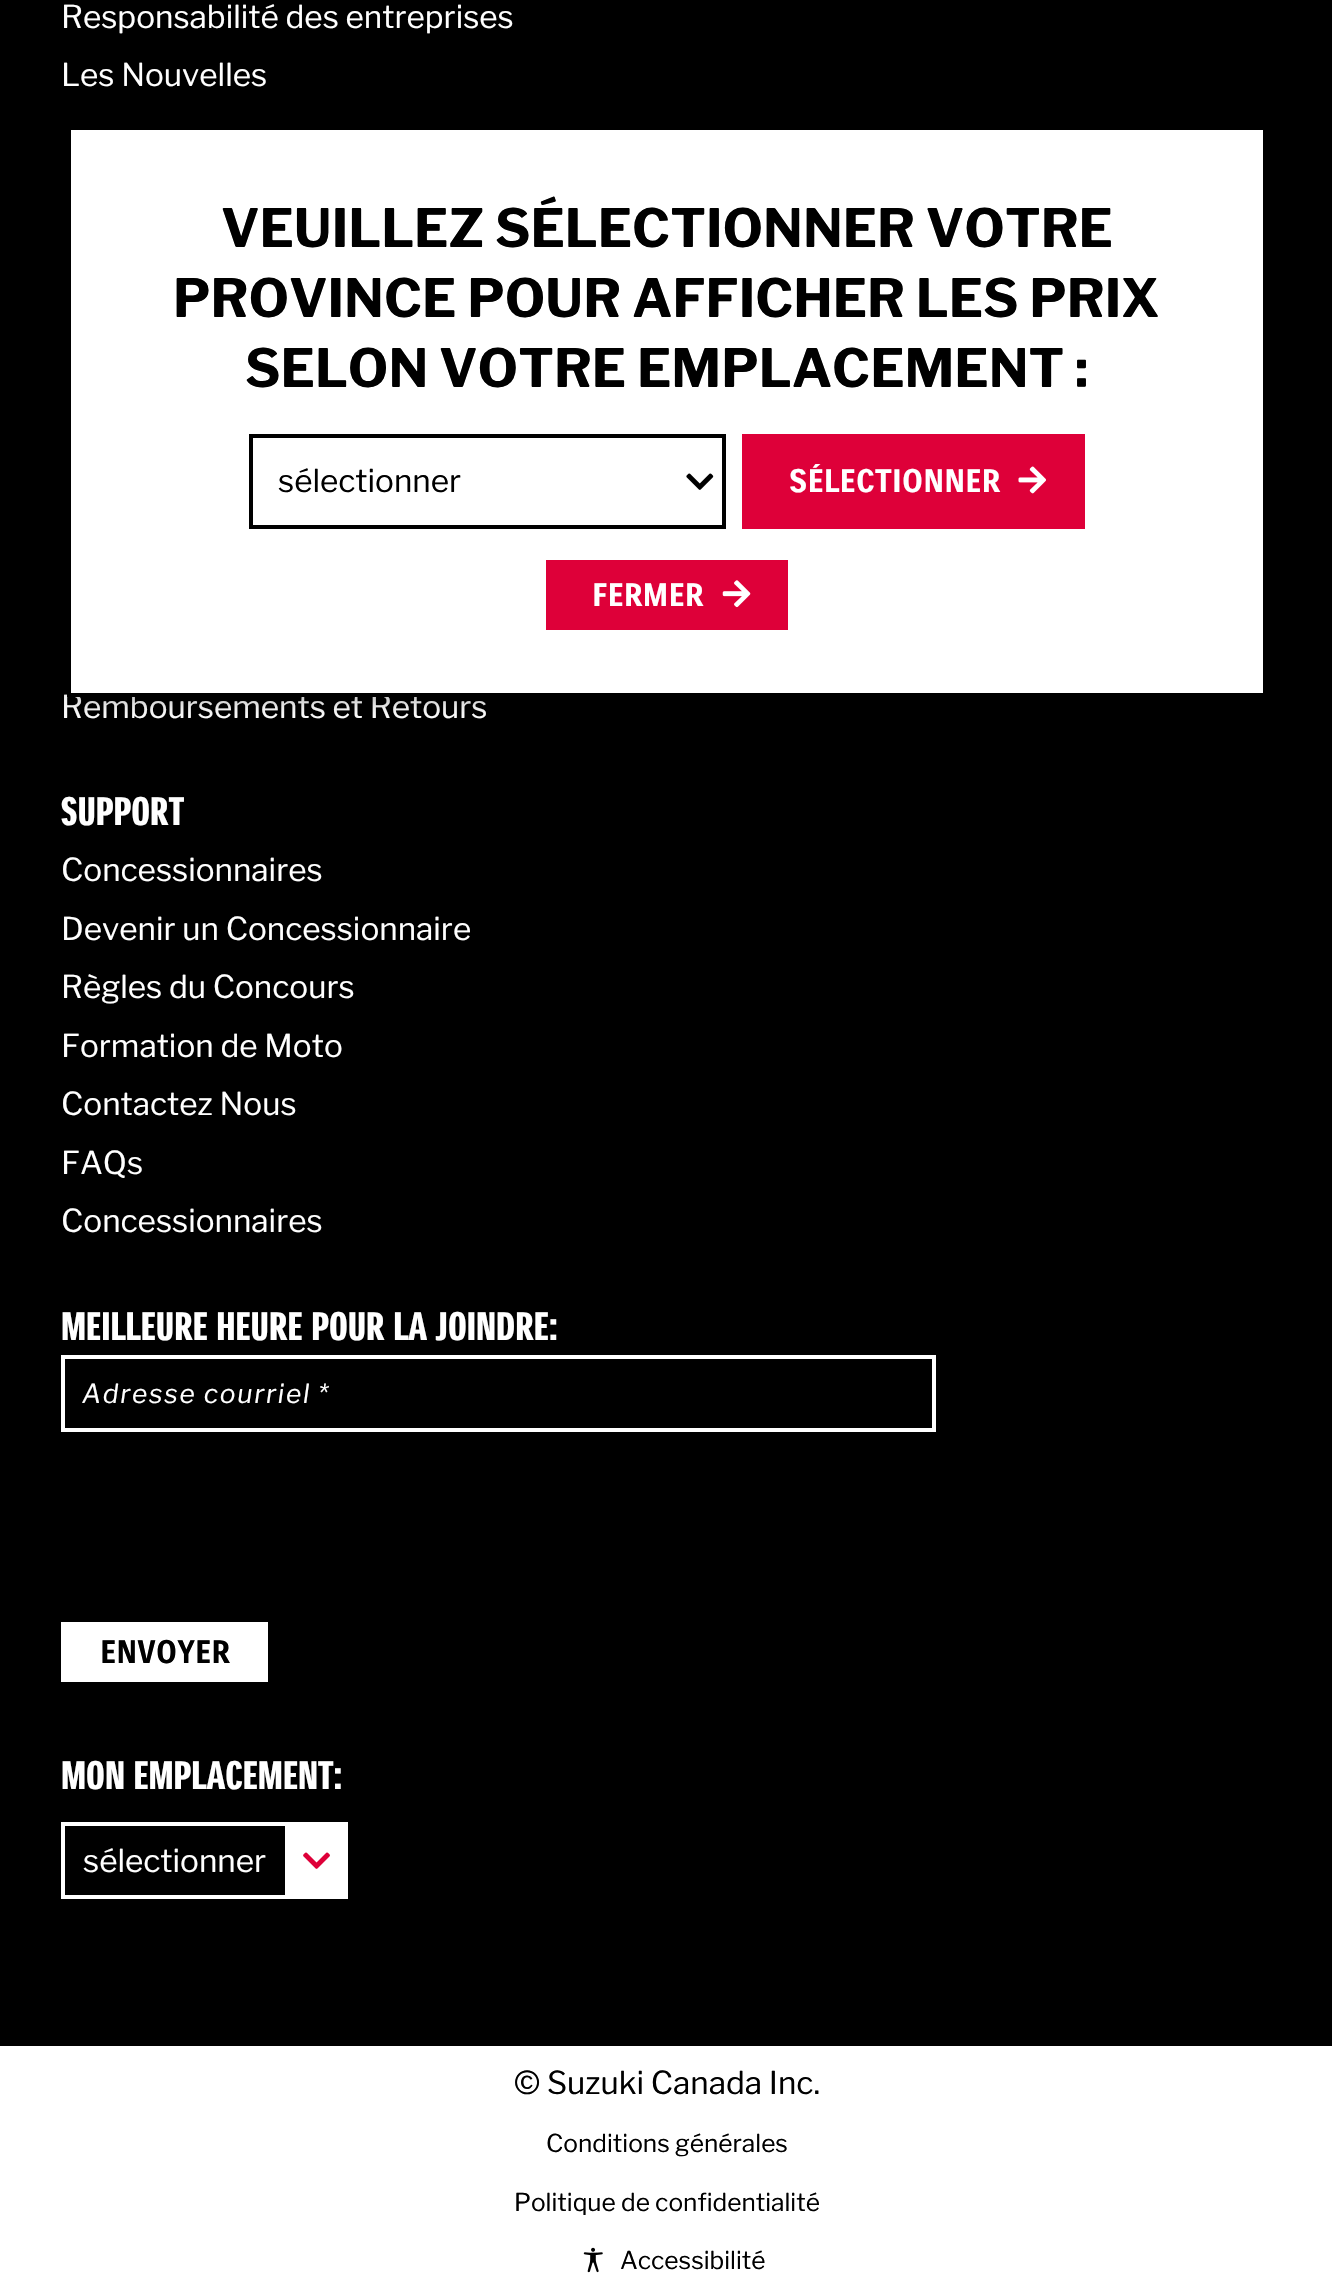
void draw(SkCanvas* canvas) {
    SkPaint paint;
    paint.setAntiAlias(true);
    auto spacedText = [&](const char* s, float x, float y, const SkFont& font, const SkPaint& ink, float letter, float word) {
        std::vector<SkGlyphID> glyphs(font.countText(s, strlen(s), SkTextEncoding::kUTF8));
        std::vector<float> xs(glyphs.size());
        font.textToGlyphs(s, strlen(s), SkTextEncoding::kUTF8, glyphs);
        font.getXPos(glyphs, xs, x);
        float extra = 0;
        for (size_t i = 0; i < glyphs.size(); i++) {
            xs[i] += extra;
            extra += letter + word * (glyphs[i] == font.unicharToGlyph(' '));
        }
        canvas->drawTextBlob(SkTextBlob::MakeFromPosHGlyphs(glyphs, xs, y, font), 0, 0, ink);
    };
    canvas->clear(0xFFFFFFFF);
    paint.setColor(0xFF000000);
    canvas->drawRect(SkRect::MakeXYWH(0, 0, 1332, 2046), paint);
    SkFont font1(fontMgr->matchFamilyStyle("Libre Franklin", SkFontStyle::Normal()), 31.5f);
    font1.setSubpixel(true);
    paint.setColor(0xFFFFFFFF);
    canvas->drawString("Responsabilité des entreprises", 61, 28, font1, paint);
    canvas->drawString("Les Nouvelles", 61, 86, font1, paint);
    canvas->drawString("Remboursements et Retours", 61, 718, font1, paint);
    SkFont font2(fontMgr->matchFamilyStyle("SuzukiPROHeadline", SkFontStyle::Bold()), 38.5f);
    font2.setSubpixel(true);
    canvas->drawString("SUPPORT", 61, 825, font2, paint);
    canvas->drawString("Concessionnaires", 61, 881, font1, paint);
    canvas->drawString("Devenir un Concessionnaire", 61, 940, font1, paint);
    canvas->drawString("Règles du Concours", 61, 998, font1, paint);
    canvas->drawString("Formation de Moto", 61, 1057, font1, paint);
    canvas->drawString("Contactez Nous", 61, 1115, font1, paint);
    canvas->drawString("FAQs", 61, 1174, font1, paint);
    canvas->drawString("Concessionnaires", 61, 1232, font1, paint);
    canvas->drawString("MEILLEURE HEURE POUR LA JOINDRE:", 61, 1340, font2, paint);
    paint.setStyle(SkPaint::kStroke_Style);
    paint.setStrokeWidth(4);
    canvas->drawRect(SkRect::MakeXYWH(63, 1357, 871, 73), paint);
    SkFont font3(fontMgr->matchFamilyStyle("Libre Franklin", SkFontStyle::Italic()), 26.25f);
    font3.setSubpixel(true);
    paint.setStyle(SkPaint::kFill_Style);
    spacedText("Adresse courriel *", 82, 1403, font3, paint, 1.75f, 0);
    canvas->drawRect(SkRect::MakeXYWH(61, 1622, 207, 60), paint);
    SkFont font4(fontMgr->matchFamilyStyle("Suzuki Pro", SkFontStyle::Bold()), 31.5f);
    font4.setSubpixel(true);
    paint.setColor(0xFF000000);
    canvas->drawString("ENVOYER", 100, 1663, font4, paint);
    paint.setColor(0xFFFFFFFF);
    canvas->drawString("MON EMPLACEMENT:", 61, 1789, font2, paint);
    canvas->drawRect(SkRect::MakeXYWH(285, 1826, 59, 69), paint);
    canvas->drawImageRect(SkImages::DeferredFromEncodedData(SkData::MakeFromFileName("img1.png")), SkRect::MakeXYWH(303, 1852, 27, 17), SkSamplingOptions());
    paint.setStyle(SkPaint::kStroke_Style);
    canvas->drawRect(SkRect::MakeXYWH(63, 1824, 283, 73), paint);
    paint.setStyle(SkPaint::kFill_Style);
    canvas->drawString("sélectionner", 83, 1872, font1, paint);
    paint.setColor(0xFF000000);
    canvas->drawString("© Suzuki Canada Inc.", 514, 2094, font1, paint);
    SkFont font5(fontMgr->matchFamilyStyle("Libre Franklin", SkFontStyle::Normal()), 24.5f);
    font5.setSubpixel(true);
    canvas->drawString("Conditions générales", 546, 2152, font5, paint);
    canvas->drawString("Politique de confidentialité", 514, 2211, font5, paint);
    canvas->drawImageRect(SkImages::DeferredFromEncodedData(SkData::MakeFromFileName("img2.png")), SkRect::MakeXYWH(583, 2247, 20, 26), SkSamplingOptions());
    canvas->drawString("Accessibilité", 620, 2269, font5, paint);
    paint.setColor(0x4D000000);
    paint.setMaskFilter(SkMaskFilter::MakeBlur(kNormal_SkBlurStyle, 9));
    canvas->drawRect(SkRect::MakeXYWH(72, 131, 1200, 571), paint);
    paint.setMaskFilter(nullptr);
    paint.setColor(0xFFFFFFFF);
    canvas->drawRect(SkRect::MakeXYWH(69, 128, 1196, 567), paint);
    paint.setStyle(SkPaint::kStroke_Style);
    paint.setColor(0xFF000000);
    canvas->drawRect(SkRect::MakeXYWH(69, 128, 1196, 567), paint);
    SkFont font6(fontMgr->matchFamilyStyle("Libre Franklin", SkFontStyle::Bold()), 52.5f);
    font6.setSubpixel(true);
    paint.setStyle(SkPaint::kFill_Style);
    canvas->drawString("VEUILLEZ SÉLECTIONNER VOTRE", 221, 247, font6, paint);
    canvas->drawString("PROVINCE POUR AFFICHER LES PRIX", 173, 317, font6, paint);
    canvas->drawString("SELON VOTRE EMPLACEMENT :", 245, 387, font6, paint);
    canvas->drawImageRect(SkImages::DeferredFromEncodedData(SkData::MakeFromFileName("img3.png")), SkRect::MakeXYWH(686, 473, 28, 17), SkSamplingOptions());
    paint.setStyle(SkPaint::kStroke_Style);
    canvas->drawRect(SkRect::MakeXYWH(251, 436, 473, 91), paint);
    paint.setStyle(SkPaint::kFill_Style);
    canvas->drawString("sélectionner", 278, 492, font1, paint);
    paint.setColor(0xFFDE0039);
    canvas->drawRect(SkRect::MakeXYWH(742, 434, 343, 95), paint);
    paint.setColor(0xFFFFFFFF);
    canvas->drawString("SÉLECTIONNER", 789, 492, font4, paint);
    canvas->drawImageRect(SkImages::DeferredFromEncodedData(SkData::MakeFromFileName("img4.png")), SkRect::MakeXYWH(1018, 466, 28, 28), SkSamplingOptions());
    paint.setColor(0xFFDE0039);
    canvas->drawRect(SkRect::MakeXYWH(546, 560, 242, 70), paint);
    paint.setColor(0xFFFFFFFF);
    canvas->drawString("FERMER", 592, 606, font4, paint);
    canvas->drawImageRect(SkImages::DeferredFromEncodedData(SkData::MakeFromFileName("img5.png")), SkRect::MakeXYWH(722, 580, 29, 28), SkSamplingOptions());
}
